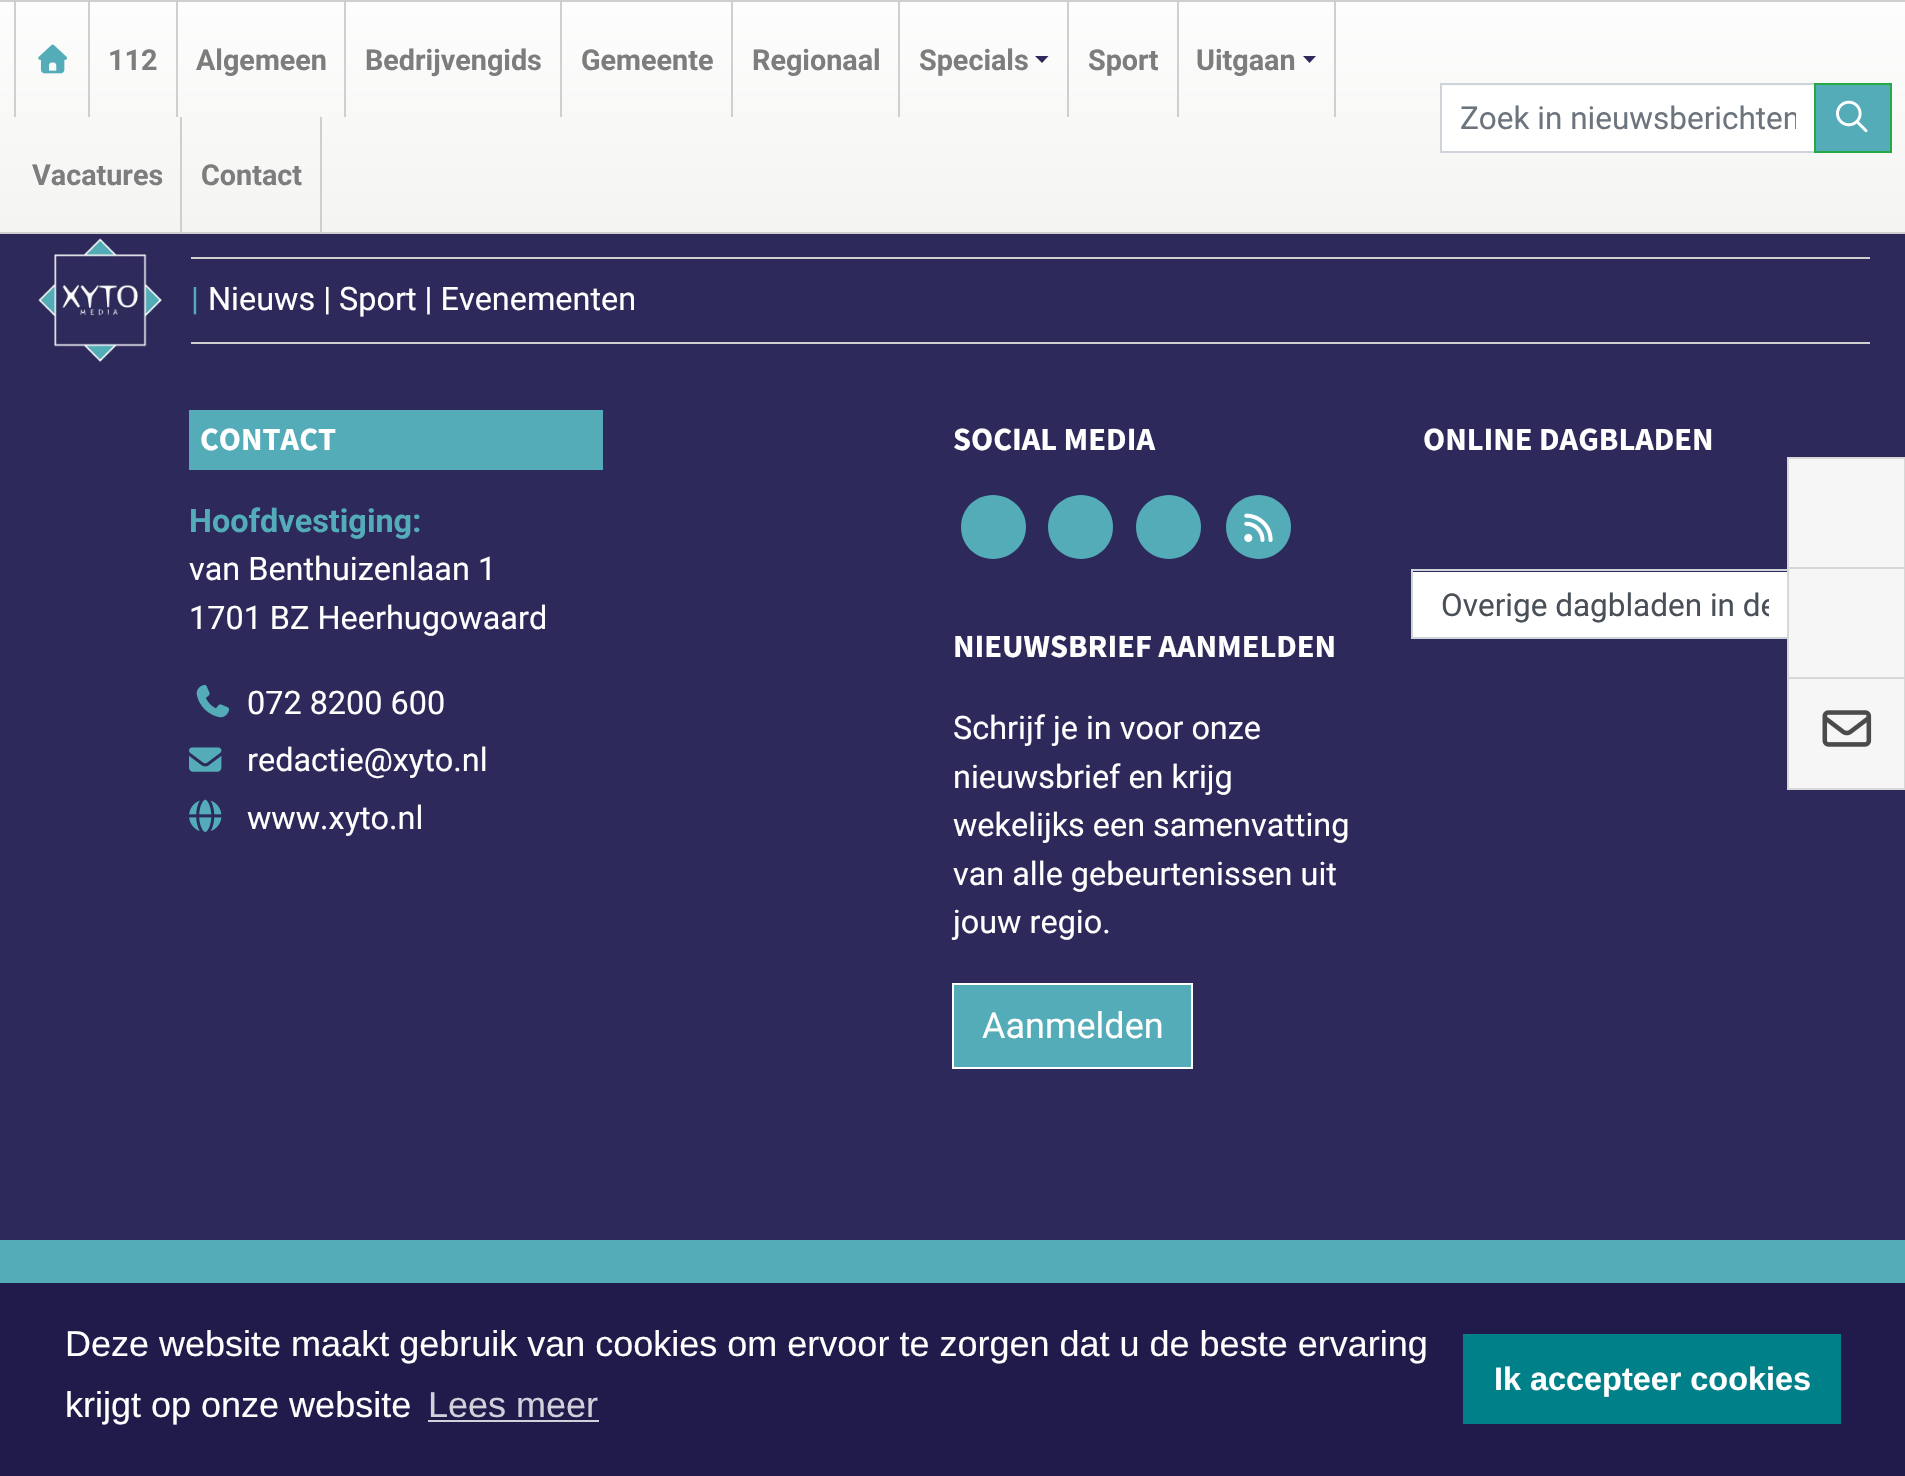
void draw(SkCanvas* canvas) {
    SkPaint paint;
    paint.setAntiAlias(true);
    canvas->clear(0xFF53ACB8);
    {
        const SkColor colors[] = {0xFFFDFDFD, 0xFFF4F4F2};
        const float stops[] = {0, 1};
        const SkPoint ends[] = {{953, 2.2f}, {953, 232}};
        paint.setShader(SkGradientShader::MakeLinear(ends, colors, stops, 2, SkTileMode::kClamp));
        paint.setAlpha(255);
    }
    canvas->drawRect(SkRect::MakeXYWH(0, 2, 1905, 230), paint);
    paint.setShader(nullptr);
    paint.setColor(0xFFCFCFCF);
    canvas->drawRect(SkRect::MakeXYWH(0, 0, 1905, 2), paint);
    canvas->drawRect(SkRect::MakeXYWH(0, 232, 1905, 2), paint);
    canvas->drawRect(SkRect::MakeXYWH(88, 2, 2, 115), paint);
    canvas->drawRect(SkRect::MakeXYWH(14, 2, 2, 115), paint);
    canvas->drawImageRect(SkImages::DeferredFromEncodedData(SkData::MakeFromFileName("img1.png")), SkRect::MakeXYWH(38, 44, 29, 30), SkSamplingOptions());
    canvas->drawRect(SkRect::MakeXYWH(176, 2, 2, 115), paint);
    SkFont font1(fontMgr->matchFamilyStyle("Roboto", SkFontStyle::Bold()), 28.75f);
    font1.setSubpixel(true);
    paint.setColor(0xFF7D7D7D);
    canvas->drawString("112", 108, 70, font1, paint);
    paint.setColor(0xFFCFCFCF);
    canvas->drawRect(SkRect::MakeXYWH(344, 2, 2, 115), paint);
    paint.setColor(0xFF7D7D7D);
    canvas->drawString("Algemeen", 196, 70, font1, paint);
    paint.setColor(0xFFCFCFCF);
    canvas->drawRect(SkRect::MakeXYWH(560, 2, 2, 115), paint);
    paint.setColor(0xFF7D7D7D);
    canvas->drawString("Bedrijvengids", 365, 70, font1, paint);
    paint.setColor(0xFFCFCFCF);
    canvas->drawRect(SkRect::MakeXYWH(731, 2, 2, 115), paint);
    paint.setColor(0xFF7D7D7D);
    canvas->drawString("Gemeente", 581, 70, font1, paint);
    paint.setColor(0xFFCFCFCF);
    canvas->drawRect(SkRect::MakeXYWH(898, 2, 2, 115), paint);
    paint.setColor(0xFF7D7D7D);
    canvas->drawString("Regionaal", 752, 70, font1, paint);
    paint.setColor(0xFFCFCFCF);
    canvas->drawRect(SkRect::MakeXYWH(1067, 2, 2, 115), paint);
    paint.setColor(0xFF7D7D7D);
    canvas->drawString("Specials", 919, 70, font1, paint);
    paint.setColor(0xFF2D2A5B);
    canvas->drawPath(SkPathBuilder().moveTo(1035, 56).lineTo(1048.5f, 56).lineTo(1042, 63).close().detach(), paint);
    paint.setColor(0xFFCFCFCF);
    canvas->drawRect(SkRect::MakeXYWH(1177, 2, 2, 115), paint);
    paint.setColor(0xFF7D7D7D);
    canvas->drawString("Sport", 1088, 70, font1, paint);
    paint.setColor(0xFFCFCFCF);
    canvas->drawRect(SkRect::MakeXYWH(1334, 2, 2, 115), paint);
    paint.setColor(0xFF7D7D7D);
    canvas->drawString("Uitgaan", 1196, 70, font1, paint);
    paint.setColor(0xFF2D2A5B);
    canvas->drawPath(SkPathBuilder().moveTo(1303, 56).lineTo(1316, 56).lineTo(1309.5f, 63).close().detach(), paint);
    paint.setColor(0xFFCFCFCF);
    canvas->drawRect(SkRect::MakeXYWH(180, 117, 2, 115), paint);
    paint.setColor(0xFF7D7D7D);
    canvas->drawString("Vacatures", 32, 185, font1, paint);
    paint.setColor(0xFFCFCFCF);
    canvas->drawRect(SkRect::MakeXYWH(320, 117, 2, 115), paint);
    paint.setColor(0xFF7D7D7D);
    canvas->drawString("Contact", 201, 185, font1, paint);
    paint.setColor(0xFFFFFFFF);
    canvas->drawRect(SkRect::MakeXYWH(1442, 86, 372, 65), paint);
    paint.setStyle(SkPaint::kStroke_Style);
    paint.setStrokeWidth(2);
    paint.setColor(0xFFCED4DA);
    canvas->drawRect(SkRect::MakeXYWH(1441, 84, 374, 68), paint);
    canvas->save();
    canvas->clipRect(SkRect::MakeXYWH(1460, 99, 336, 36));
    SkFont font2(fontMgr->matchFamilyStyle("Roboto", SkFontStyle::Normal()), 31.5f);
    font2.setSubpixel(true);
    paint.setStyle(SkPaint::kFill_Style);
    paint.setColor(0xFF6C757D);
    canvas->drawString("Zoek in nieuwsberichten", 1460, 129, font2, paint);
    canvas->restore();
    paint.setColor(0xFF53ACB8);
    canvas->drawRect(SkRect::MakeXYWH(1815, 84, 76, 68), paint);
    paint.setStyle(SkPaint::kStroke_Style);
    paint.setColor(0xFF28A745);
    canvas->drawRect(SkRect::MakeXYWH(1815, 84, 76, 68), paint);
    canvas->drawImageRect(SkImages::DeferredFromEncodedData(SkData::MakeFromFileName("img2.png")), SkRect::MakeXYWH(1836, 100, 32, 33), SkSamplingOptions());
    paint.setStyle(SkPaint::kFill_Style);
    paint.setColor(0xFF2D2A5B);
    canvas->drawRect(SkRect::MakeXYWH(0, 234, 1905, 1006), paint);
    canvas->drawImageRect(SkImages::DeferredFromEncodedData(SkData::MakeFromFileName("img3.png")), SkRect::MakeXYWH(38, 238, 124, 124), SkSamplingOptions());
    paint.setColor(0xFFCFCFCF);
    canvas->drawRect(SkRect::MakeXYWH(191, 257, 1679, 2), paint);
    canvas->drawRect(SkRect::MakeXYWH(191, 342, 1679, 2), paint);
    SkFont font3(fontMgr->matchFamilyStyle("Roboto", SkFontStyle::Normal()), 32.4f);
    font3.setSubpixel(true);
    paint.setColor(0xFF53ACB8);
    canvas->drawString("|", 191, 310, font3, paint);
    paint.setColor(0xFFFFFFFF);
    canvas->drawString("Nieuws | Sport | Evenementen", 208, 310, font3, paint);
    paint.setColor(0xFF53ACB8);
    canvas->drawRect(SkRect::MakeXYWH(189, 410, 414, 60), paint);
    SkFont font4(fontMgr->matchFamilyStyle("Source Sans Pro", SkFontStyle::Bold()), 32.4f);
    font4.setSubpixel(true);
    paint.setColor(0xFFFFFFFF);
    canvas->drawString("CONTACT", 200, 450, font4, paint);
    SkFont font5(fontMgr->matchFamilyStyle("Roboto", SkFontStyle::Bold()), 32.4f);
    font5.setSubpixel(true);
    paint.setColor(0xFF53ACB8);
    canvas->drawString("Hoofdvestiging:", 189, 532, font5, paint);
    paint.setColor(0xFFFFFFFF);
    canvas->drawString("van Benthuizenlaan 1", 189, 580, font3, paint);
    canvas->drawString("1701 BZ Heerhugowaard", 189, 629, font3, paint);
    canvas->drawImageRect(SkImages::DeferredFromEncodedData(SkData::MakeFromFileName("img4.png")), SkRect::MakeXYWH(196, 684, 34, 34), SkSamplingOptions());
    canvas->drawString("072 8200 600", 247, 714, font3, paint);
    canvas->drawImageRect(SkImages::DeferredFromEncodedData(SkData::MakeFromFileName("img5.png")), SkRect::MakeXYWH(189, 747, 33, 25), SkSamplingOptions());
    canvas->drawString("redactie@xyto.nl", 247, 771, font3, paint);
    canvas->drawImageRect(SkImages::DeferredFromEncodedData(SkData::MakeFromFileName("img6.png")), SkRect::MakeXYWH(189, 799, 33, 33), SkSamplingOptions());
    canvas->drawString("www.xyto.nl", 247, 829, font3, paint);
    canvas->drawString("SOCIAL MEDIA", 953, 450, font4, paint);
    paint.setColor(0xFF53ACB8);
    canvas->drawPath(SkPathBuilder().moveTo(961, 527).cubicTo(961, 509, 975, 495, 993, 495).cubicTo(1011, 495, 1026, 509, 1026, 527).cubicTo(1026, 545, 1011, 559, 993, 559).cubicTo(975, 559, 961, 545, 961, 527).close().detach(), paint);
    canvas->drawPath(SkPathBuilder().moveTo(1048, 527).cubicTo(1048, 509, 1063, 495, 1081, 495).cubicTo(1099, 495, 1113, 509, 1113, 527).cubicTo(1113, 545, 1099, 559, 1081, 559).cubicTo(1063, 559, 1048, 545, 1048, 527).close().detach(), paint);
    canvas->drawPath(SkPathBuilder().moveTo(1136, 527).cubicTo(1136, 509, 1151, 495, 1169, 495).cubicTo(1186, 495, 1201, 509, 1201, 527).cubicTo(1201, 545, 1186, 559, 1169, 559).cubicTo(1151, 559, 1136, 545, 1136, 527).close().detach(), paint);
    canvas->drawPath(SkPathBuilder().moveTo(1226, 527).cubicTo(1226, 509, 1241, 495, 1259, 495).cubicTo(1276, 495, 1291, 509, 1291, 527).cubicTo(1291, 545, 1276, 559, 1259, 559).cubicTo(1241, 559, 1226, 545, 1226, 527).close().detach(), paint);
    canvas->drawImageRect(SkImages::DeferredFromEncodedData(SkData::MakeFromFileName("img7.png")), SkRect::MakeXYWH(1244, 513, 29, 29), SkSamplingOptions());
    paint.setColor(0xFFFFFFFF);
    canvas->drawString("NIEUWSBRIEF AANMELDEN", 953, 657, font4, paint);
    canvas->drawString("Schrijf je in voor onze", 953, 739, font3, paint);
    canvas->drawString("nieuwsbrief en krijg", 953, 788, font3, paint);
    canvas->drawString("wekelijks een samenvatting", 953, 836, font3, paint);
    canvas->drawString("van alle gebeurtenissen uit", 953, 885, font3, paint);
    canvas->drawString("jouw regio.", 953, 933, font3, paint);
    paint.setColor(0xFF53ACB8);
    canvas->drawRect(SkRect::MakeXYWH(953, 984, 239, 84), paint);
    paint.setStyle(SkPaint::kStroke_Style);
    paint.setColor(0xFFFFFFFF);
    canvas->drawRect(SkRect::MakeXYWH(953, 984, 239, 84), paint);
    SkFont font6(fontMgr->matchFamilyStyle("Roboto", SkFontStyle::Normal()), 36);
    font6.setSubpixel(true);
    paint.setStyle(SkPaint::kFill_Style);
    canvas->drawString("Aanmelden", 982, 1038, font6, paint);
    canvas->drawString("ONLINE DAGBLADEN", 1423, 450, font4, paint);
    canvas->drawRect(SkRect::MakeXYWH(1413, 572, 374, 65), paint);
    paint.setStyle(SkPaint::kStroke_Style);
    paint.setColor(0xFFCED4DA);
    canvas->drawRect(SkRect::MakeXYWH(1412, 570, 412, 68), paint);
    canvas->save();
    canvas->clipRect(SkRect::MakeXYWH(1440, 585, 329, 41));
    paint.setStyle(SkPaint::kFill_Style);
    paint.setColor(0xFF495057);
    canvas->drawString("Overige dagbladen in de", 1441, 616, font2, paint);
    canvas->restore();
    paint.setColor(0xFFF6F6F6);
    canvas->drawRect(SkRect::MakeXYWH(1788, 458, 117, 110), paint);
    paint.setStyle(SkPaint::kStroke_Style);
    paint.setColor(0xFFD7D7D7);
    canvas->drawRect(SkRect::MakeXYWH(1788, 458, 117, 110), paint);
    paint.setStyle(SkPaint::kFill_Style);
    paint.setColor(0xFFF6F6F6);
    canvas->drawRect(SkRect::MakeXYWH(1789, 569, 115, 108), paint);
    paint.setStyle(SkPaint::kStroke_Style);
    paint.setColor(0xFFD7D7D7);
    canvas->drawRect(SkRect::MakeXYWH(1788, 568, 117, 111), paint);
    paint.setStyle(SkPaint::kFill_Style);
    paint.setColor(0xFFF6F6F6);
    canvas->drawRect(SkRect::MakeXYWH(1788, 678, 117, 111), paint);
    paint.setStyle(SkPaint::kStroke_Style);
    paint.setColor(0xFFD7D7D7);
    canvas->drawRect(SkRect::MakeXYWH(1788, 678, 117, 111), paint);
    canvas->drawImageRect(SkImages::DeferredFromEncodedData(SkData::MakeFromFileName("img8.png")), SkRect::MakeXYWH(1822, 710, 50, 37), SkSamplingOptions());
    paint.setStyle(SkPaint::kFill_Style);
    paint.setColor(0xFF201B4A);
    canvas->drawRect(SkRect::MakeXYWH(0, 1283, 1905, 193), paint);
    SkFont font7(fontMgr->matchFamilyStyle("Liberation Sans", SkFontStyle::Normal()), 36);
    font7.setSubpixel(true);
    paint.setColor(0xFFFFFFFF);
    canvas->drawString("Deze website maakt gebruik van cookies om ervoor te zorgen dat u de beste ervaring", 65, 1356, font7, paint);
    canvas->drawString("krijgt op onze website", 65, 1417, font7, paint);
    paint.setColor(0xFFD2D1DB);
    canvas->drawString("Lees meer", 428, 1417, font7, paint);
    canvas->drawRect(SkRect::MakeXYWH(428, 1420, 171, 2), paint);
    paint.setColor(0xFF00818A);
    canvas->drawRect(SkRect::MakeXYWH(1463, 1334, 378, 90), paint);
    SkFont font8(fontMgr->matchFamilyStyle("Liberation Sans", SkFontStyle::Bold()), 32.4f);
    font8.setSubpixel(true);
    paint.setColor(0xFFFFFFFF);
    canvas->drawString("Ik accepteer cookies", 1494, 1390, font8, paint);
}
